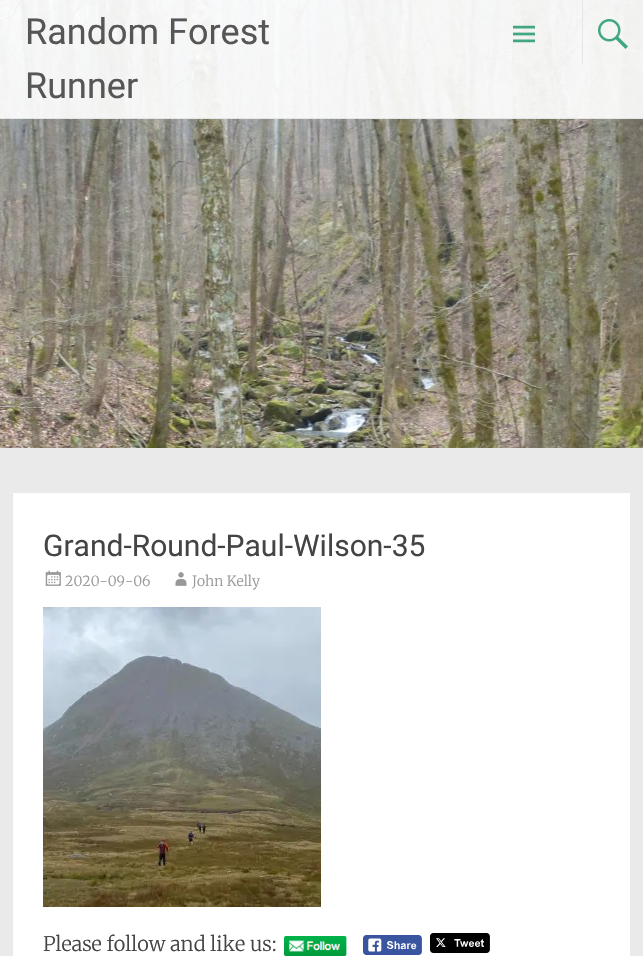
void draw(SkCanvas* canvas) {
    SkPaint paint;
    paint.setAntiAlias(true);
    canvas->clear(0xFFFFFFFF);
    canvas->drawImageRect(SkImages::DeferredFromEncodedData(SkData::MakeFromFileName("img1.png")), SkRect::MakeXYWH(0, 0, 643, 448), SkSamplingOptions());
    paint.setColor(0xE6FFFFFF);
    canvas->drawRect(SkRect::MakeXYWH(0, 0, 643, 119), paint);
    paint.setColor(0xE6E1E4E6);
    canvas->drawRect(SkRect::MakeXYWH(0, 118, 643, 1), paint);
    SkFont font1(fontMgr->matchFamilyStyle("Roboto", SkFontStyle::Normal()), 36);
    font1.setSubpixel(true);
    paint.setColor(0xFF565656);
    canvas->drawString("Random Forest", 25, 44, font1, paint);
    canvas->drawString("Runner", 25, 98, font1, paint);
    canvas->drawImageRect(SkImages::DeferredFromEncodedData(SkData::MakeFromFileName("img2.png")), SkRect::MakeXYWH(513, 25, 22, 18), SkSamplingOptions());
    paint.setColor(0xE6E1E4E6);
    canvas->drawRect(SkRect::MakeXYWH(582, 0, 1, 64), paint);
    canvas->drawImageRect(SkImages::DeferredFromEncodedData(SkData::MakeFromFileName("img3.png")), SkRect::MakeXYWH(598, 19, 30, 30), SkSamplingOptions());
    paint.setColor(0xFFEAEAEA);
    canvas->drawRect(SkRect::MakeXYWH(0, 448, 643, 508), paint);
    paint.setColor(0xFFFFFFFF);
    canvas->drawRect(SkRect::MakeXYWH(13, 493, 617, 463), paint);
    SkFont font2(fontMgr->matchFamilyStyle("Roboto", SkFontStyle::Normal()), 30);
    font2.setSubpixel(true);
    paint.setColor(0xFF444444);
    canvas->drawString("Grand-Round-Paul-Wilson-35", 43, 556, font2, paint);
    canvas->drawImageRect(SkImages::DeferredFromEncodedData(SkData::MakeFromFileName("img4.png")), SkRect::MakeXYWH(45, 570, 16, 16), SkSamplingOptions());
    SkFont font3(fontMgr->matchFamilyStyle("Merriweather", SkFontStyle(300, SkFontStyle::kNormal_Width, SkFontStyle::kUpright_Slant)), 14);
    font3.setSubpixel(true);
    paint.setColor(0xFF999999);
    canvas->drawString("2020-09-06", 65, 586, font3, paint);
    canvas->drawImageRect(SkImages::DeferredFromEncodedData(SkData::MakeFromFileName("img5.png")), SkRect::MakeXYWH(175, 572, 12, 14), SkSamplingOptions());
    canvas->drawString("John Kelly", 192, 586, font3, paint);
    canvas->drawImageRect(SkImages::DeferredFromEncodedData(SkData::MakeFromFileName("img6.png")), SkRect::MakeXYWH(43, 607, 278, 300), SkSamplingOptions());
    SkFont font4(fontMgr->matchFamilyStyle("Merriweather", SkFontStyle(300, SkFontStyle::kNormal_Width, SkFontStyle::kUpright_Slant)), 20);
    font4.setSubpixel(true);
    paint.setColor(0xFF444444);
    canvas->drawString("Please follow and like us:", 43, 951, font4, paint);
    canvas->drawImageRect(SkImages::DeferredFromEncodedData(SkData::MakeFromFileName("img7.png")), SkRect::MakeXYWH(284, 936, 63, 20), SkSamplingOptions());
    canvas->drawImageRect(SkImages::DeferredFromEncodedData(SkData::MakeFromFileName("img8.png")), SkRect::MakeXYWH(363, 935, 59, 20), SkSamplingOptions());
    canvas->drawImageRect(SkImages::DeferredFromEncodedData(SkData::MakeFromFileName("img9.png")), SkRect::MakeXYWH(430, 933, 60, 20), SkSamplingOptions());
}
